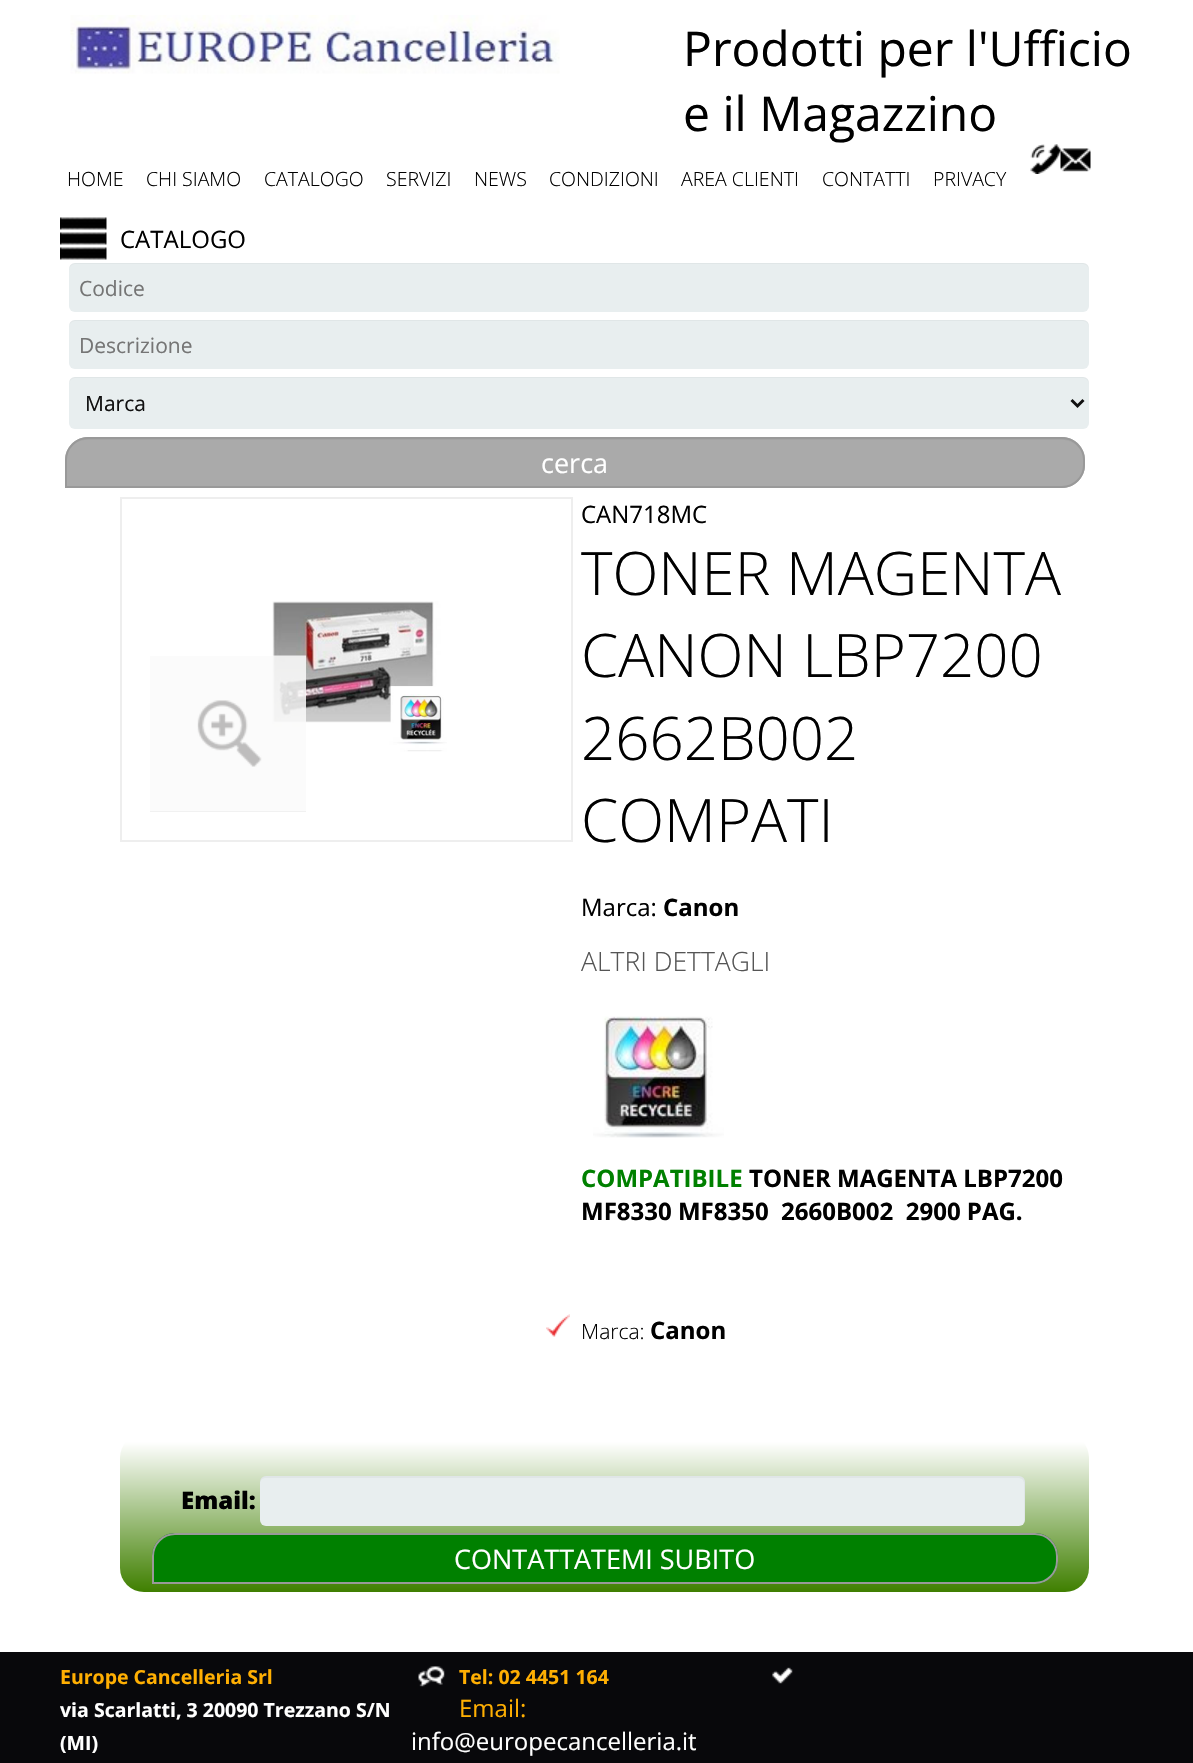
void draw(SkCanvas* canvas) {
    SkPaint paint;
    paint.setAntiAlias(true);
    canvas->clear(0xFFFFFFFF);
    canvas->drawImageRect(SkImages::DeferredFromEncodedData(SkData::MakeFromFileName("img1.png")), SkRect::MakeXYWH(70, 15, 490, 59), SkSamplingOptions());
    SkFont font1(fontMgr->matchFamilyStyle("Open Sans", SkFontStyle::Normal()), 48);
    font1.setSubpixel(true);
    paint.setColor(0xFF000000);
    canvas->drawString("Prodotti per l'Ufficio", 683, 66, font1, paint);
    canvas->drawString("e il Magazzino", 683, 131, font1, paint);
    canvas->drawImageRect(SkImages::DeferredFromEncodedData(SkData::MakeFromFileName("img2.png")), SkRect::MakeXYWH(1030, 144, 31, 30), SkSamplingOptions());
    canvas->drawImageRect(SkImages::DeferredFromEncodedData(SkData::MakeFromFileName("img3.png")), SkRect::MakeXYWH(1060, 148, 31, 24), SkSamplingOptions());
    SkFont font2(fontMgr->matchFamilyStyle("Open Sans", SkFontStyle(300, SkFontStyle::kNormal_Width, SkFontStyle::kUpright_Slant)), 19.5f);
    font2.setSubpixel(true);
    canvas->drawString("HOME", 67, 186, font2, paint);
    canvas->drawString("CHI SIAMO", 146, 186, font2, paint);
    canvas->drawString("CATALOGO", 264, 186, font2, paint);
    canvas->drawString("SERVIZI", 386, 186, font2, paint);
    canvas->drawString("NEWS", 474, 186, font2, paint);
    canvas->drawString("CONDIZIONI", 549, 186, font2, paint);
    canvas->drawString("AREA CLIENTI", 681, 186, font2, paint);
    canvas->drawString("CONTATTI", 822, 186, font2, paint);
    canvas->drawString("PRIVACY", 933, 186, font2, paint);
    canvas->drawImageRect(SkImages::DeferredFromEncodedData(SkData::MakeFromFileName("img4.png")), SkRect::MakeXYWH(60, 217, 47, 43), SkSamplingOptions());
    SkFont font3(fontMgr->matchFamilyStyle("Open Sans", SkFontStyle::Normal()), 24);
    font3.setSubpixel(true);
    canvas->drawString("CATALOGO", 120, 248, font3, paint);
    paint.setColor(0xFFE8EEEF);
    canvas->drawRoundRect(SkRect::MakeXYWH(69, 263, 1020, 49), 6, 6, paint);
    paint.setColor(0x08000000);
    canvas->drawPath(SkPathBuilder().moveTo(75, 264).lineTo(1083, 264).cubicTo(1086, 264, 1089, 267, 1089, 270).cubicTo(1089, 266, 1087, 263, 1083, 263).lineTo(75, 263).cubicTo(71, 263, 69, 266, 69, 270).cubicTo(69, 267, 72, 264, 75, 264).close().detach(), paint);
    SkFont font4(fontMgr->matchFamilyStyle("Open Sans", SkFontStyle::Normal()), 21);
    font4.setSubpixel(true);
    paint.setColor(0xFF757575);
    canvas->drawString("Codice", 79, 296, font4, paint);
    paint.setColor(0xFFE8EEEF);
    canvas->drawRoundRect(SkRect::MakeXYWH(69, 320, 1020, 49), 6, 6, paint);
    paint.setColor(0x08000000);
    canvas->drawPath(SkPathBuilder().moveTo(75, 321).lineTo(1083, 321).cubicTo(1086, 321, 1089, 324, 1089, 327).cubicTo(1089, 323, 1087, 320, 1083, 320).lineTo(75, 320).cubicTo(71, 320, 69, 323, 69, 327).cubicTo(69, 324, 72, 321, 75, 321).close().detach(), paint);
    paint.setColor(0xFF757575);
    canvas->drawString("Descrizione", 79, 353, font4, paint);
    paint.setColor(0xFFE8EEEF);
    canvas->drawRoundRect(SkRect::MakeXYWH(69, 377, 1020, 52), 6, 6, paint);
    paint.setColor(0x08000000);
    canvas->drawPath(SkPathBuilder().moveTo(75, 378).lineTo(1083, 378).cubicTo(1086, 378, 1089, 381, 1089, 384).cubicTo(1089, 380, 1087, 377, 1083, 377).lineTo(75, 377).cubicTo(71, 377, 69, 380, 69, 384).cubicTo(69, 381, 72, 378, 75, 378).close().detach(), paint);
    paint.setStyle(SkPaint::kStroke_Style);
    paint.setStrokeWidth(3);
    paint.setColor(0xFF111111);
    canvas->drawPath(SkPathBuilder().moveTo(1071.5f, 400).lineTo(1077.5f, 406).lineTo(1083.5f, 400).detach(), paint);
    paint.setStyle(SkPaint::kFill_Style);
    canvas->drawString("Marca", 85, 411, font4, paint);
    paint.setColor(0xFFAAAAAA);
    canvas->drawPath(SkPathBuilder().moveTo(88, 437).lineTo(1062, 437).cubicTo(1074.5f, 437, 1085, 447.5f, 1085, 460).lineTo(1085, 465).cubicTo(1085, 477.5f, 1074.5f, 488, 1062, 488).lineTo(65, 488).lineTo(65, 460).cubicTo(65, 447.5f, 75.5f, 437, 88, 437).close().detach(), paint);
    paint.setColor(0xFFA5A5A5);
    canvas->drawPath(SkPathBuilder().moveTo(87, 440).lineTo(1062, 440).cubicTo(1074, 440, 1083, 449, 1083, 460).cubicTo(1083, 448, 1074, 438, 1062, 438).lineTo(87, 438).cubicTo(75, 438, 66, 448, 66, 460).cubicTo(66, 449, 75, 440, 87, 440).close().detach(), paint);
    paint.setStyle(SkPaint::kStroke_Style);
    paint.setStrokeWidth(2);
    paint.setColor(0xFF999999);
    canvas->drawPath(SkPathBuilder().moveTo(88, 438).lineTo(1062, 438).cubicTo(1074, 438, 1084, 448, 1084, 460).lineTo(1084, 465).cubicTo(1084, 477, 1074, 487, 1062, 487).lineTo(66, 487).lineTo(66, 460).cubicTo(66, 448, 76, 438, 88, 438).close().detach(), paint);
    SkFont font5(fontMgr->matchFamilyStyle("Open Sans", SkFontStyle::Normal()), 27);
    font5.setSubpixel(true);
    paint.setStyle(SkPaint::kFill_Style);
    paint.setColor(0xFFFFFFFF);
    canvas->drawString("cerca", 541, 473, font5, paint);
    paint.setStyle(SkPaint::kStroke_Style);
    paint.setColor(0xFFEEEEEE);
    canvas->drawRect(SkRect::MakeXYWH(121, 498, 451, 343), paint);
    canvas->drawImageRect(SkImages::DeferredFromEncodedData(SkData::MakeFromFileName("img5.png")), SkRect::MakeXYWH(272, 601, 175, 151), SkSamplingOptions());
    paint.setStyle(SkPaint::kFill_Style);
    paint.setColor(0x52B8B7B5);
    canvas->drawRect(SkRect::MakeXYWH(150, 656, 156, 156), paint);
    canvas->drawImageRect(SkImages::DeferredFromEncodedData(SkData::MakeFromFileName("img6.png")), SkRect::MakeXYWH(150, 655, 156, 157), SkSamplingOptions());
    paint.setColor(0xFF000000);
    canvas->drawString("CAN718MC", 581, 523, font3, paint);
    SkFont font6(fontMgr->matchFamilyStyle("Open Sans", SkFontStyle(300, SkFontStyle::kNormal_Width, SkFontStyle::kUpright_Slant)), 60);
    font6.setSubpixel(true);
    canvas->drawString("TONER MAGENTA", 581, 595, font6, paint);
    canvas->drawString("CANON LBP7200", 581, 677, font6, paint);
    canvas->drawString("2662B002", 581, 760, font6, paint);
    canvas->drawString("COMPATI", 581, 842, font6, paint);
    SkFont font7(fontMgr->matchFamilyStyle("Open Sans", SkFontStyle::Bold()), 24);
    font7.setSubpixel(true);
    canvas->drawString("Canon", 663, 916, font7, paint);
    SkFont font8(fontMgr->matchFamilyStyle("Open Sans", SkFontStyle(300, SkFontStyle::kNormal_Width, SkFontStyle::kUpright_Slant)), 26.5f);
    font8.setSubpixel(true);
    paint.setColor(0xFF555555);
    canvas->drawString("ALTRI DETTAGLI", 581, 971, font8, paint);
    canvas->drawImageRect(SkImages::DeferredFromEncodedData(SkData::MakeFromFileName("img7.png")), SkRect::MakeXYWH(593, 1016, 131, 122), SkSamplingOptions());
    paint.setColor(0xFF008000);
    canvas->drawString("COMPATIBILE", 581, 1187, font7, paint);
    paint.setColor(0xFF000000);
    canvas->drawString("TONER MAGENTA LBP7200", 749, 1187, font7, paint);
    canvas->drawString("MF8330 MF8350  2660B002  2900 PAG.", 581, 1220, font7, paint);
    canvas->drawImageRect(SkImages::DeferredFromEncodedData(SkData::MakeFromFileName("img8.png")), SkRect::MakeXYWH(546, 1314, 24, 23), SkSamplingOptions());
    SkFont font9(fontMgr->matchFamilyStyle("Open Sans", SkFontStyle(300, SkFontStyle::kNormal_Width, SkFontStyle::kUpright_Slant)), 21);
    font9.setSubpixel(true);
    canvas->drawString("Marca:", 581, 1339, font9, paint);
    canvas->drawString("Canon", 650, 1339, font7, paint);
    canvas->drawString("Marca:", 581, 916, font3, paint);
    {
        const SkColor colors[] = {0xFFFFFFFF, 0xFF3F7F00};
        const float stops[] = {0.05f, 1};
        const SkPoint ends[] = {{120, 1434}, {120, 1592}};
        paint.setShader(SkGradientShader::MakeLinear(ends, colors, stops, 2, SkTileMode::kClamp));
        paint.setAlpha(255);
    }
    canvas->drawRoundRect(SkRect::MakeXYWH(120, 1434, 969, 158), 24, 24, paint);
    SkFont font10(fontMgr->matchFamilyStyle("Open Sans", SkFontStyle(800, SkFontStyle::kNormal_Width, SkFontStyle::kUpright_Slant)), 24);
    font10.setSubpixel(true);
    paint.setShader(nullptr);
    paint.setColor(0xFF000000);
    canvas->drawString("Email:", 181, 1509, font10, paint);
    paint.setColor(0xFFE8EEEF);
    canvas->drawRoundRect(SkRect::MakeXYWH(260, 1476, 765, 50), 6, 6, paint);
    paint.setColor(0x08000000);
    canvas->drawPath(SkPathBuilder().moveTo(266, 1478).lineTo(1018, 1478).cubicTo(1022, 1478, 1024, 1480, 1024, 1484).lineTo(1024, 1521).cubicTo(1024, 1522, 1024, 1523, 1023, 1524).cubicTo(1024, 1523, 1025, 1522, 1025, 1520).lineTo(1025, 1482).cubicTo(1025, 1479, 1022, 1476, 1019, 1476).lineTo(266, 1476).cubicTo(263, 1476, 260, 1479, 260, 1482).lineTo(260, 1484).cubicTo(260, 1480, 262, 1478, 266, 1478).close().detach(), paint);
    paint.setColor(0xFF008000);
    canvas->drawPath(SkPathBuilder().moveTo(175, 1533).lineTo(1035, 1533).cubicTo(1047.5f, 1533, 1058, 1543.5f, 1058, 1556).lineTo(1058, 1561).cubicTo(1058, 1573.5f, 1047.5f, 1584, 1035, 1584).lineTo(152, 1584).lineTo(152, 1556).cubicTo(152, 1543.5f, 162.5f, 1533, 175, 1533).close().detach(), paint);
    paint.setColor(0xFF007C00);
    canvas->drawPath(SkPathBuilder().moveTo(174, 1536).lineTo(1035, 1536).cubicTo(1047, 1536, 1056, 1545, 1056, 1557).lineTo(1056, 1556).cubicTo(1056, 1544, 1047, 1535, 1035, 1535).lineTo(174, 1535).cubicTo(162, 1535, 153, 1544, 153, 1556).lineTo(153, 1557).cubicTo(153, 1545, 162, 1536, 174, 1536).close().detach(), paint);
    paint.setStyle(SkPaint::kStroke_Style);
    paint.setColor(0xFF999999);
    canvas->drawPath(SkPathBuilder().moveTo(175, 1534).lineTo(1035, 1534).cubicTo(1047, 1534, 1057, 1544, 1057, 1556).lineTo(1057, 1561).cubicTo(1057, 1573, 1047, 1583, 1035, 1583).lineTo(153, 1583).lineTo(153, 1556).cubicTo(153, 1544, 163, 1534, 175, 1534).close().detach(), paint);
    paint.setStyle(SkPaint::kFill_Style);
    paint.setColor(0xFFFFFFFF);
    canvas->drawString("CONTATTATEMI SUBITO", 454, 1569, font5, paint);
    paint.setColor(0xFF08080B);
    canvas->drawRect(SkRect::MakeXYWH(0, 1652, 1193, 111), paint);
    SkFont font11(fontMgr->matchFamilyStyle("Open Sans", SkFontStyle::Bold()), 19.5f);
    font11.setSubpixel(true);
    paint.setColor(0xFFFFAF02);
    canvas->drawString("Europe Cancelleria Srl", 60, 1684, font11, paint);
    paint.setColor(0xFFFFFFFF);
    canvas->drawString("via Scarlatti, 3 20090 Trezzano S/N", 60, 1717, font11, paint);
    canvas->drawString("(MI)", 60, 1750, font11, paint);
    canvas->drawImageRect(SkImages::DeferredFromEncodedData(SkData::MakeFromFileName("img9.png")), SkRect::MakeXYWH(418, 1666, 27, 21), SkSamplingOptions());
    paint.setColor(0xFFFFAF02);
    canvas->drawString("Tel: 02 4451 164", 459, 1684, font11, paint);
    canvas->drawString("Email:", 459, 1717, font3, paint);
    paint.setColor(0xFFFFFFFF);
    canvas->drawString("info@europecancelleria.it", 411, 1750, font3, paint);
    canvas->drawImageRect(SkImages::DeferredFromEncodedData(SkData::MakeFromFileName("img10.png")), SkRect::MakeXYWH(772, 1667, 21, 17), SkSamplingOptions());
}
